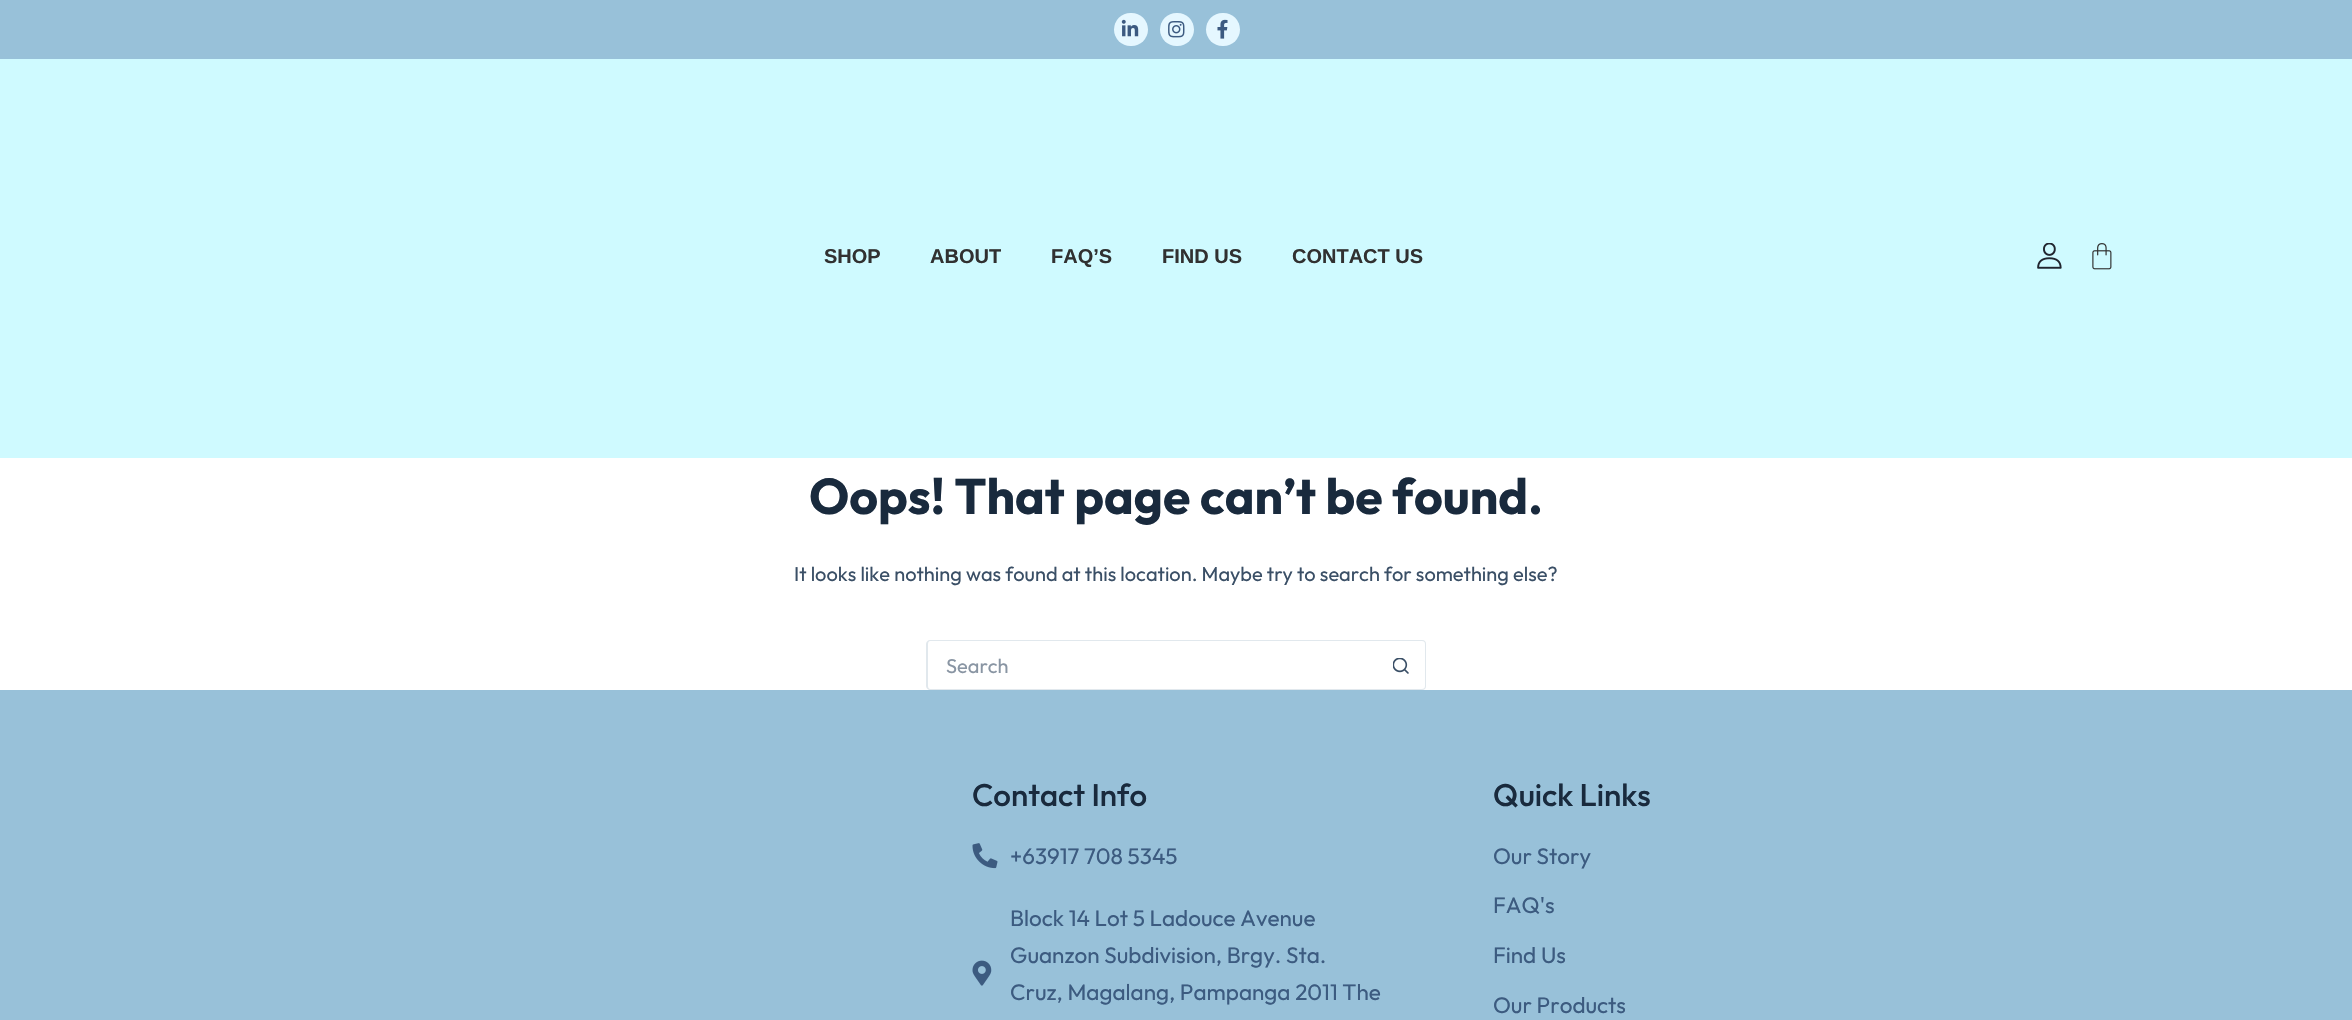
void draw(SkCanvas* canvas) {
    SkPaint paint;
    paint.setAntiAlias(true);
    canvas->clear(0xFFFFFFFF);
    paint.setColor(0xFF98C1D9);
    canvas->drawRect(SkRect::MakeXYWH(0, 0, 2352, 59), paint);
    paint.setColor(0xFFE5F7FF);
    canvas->drawRoundRect(SkRect::MakeXYWH(1114, 13, 34, 33), 16.5f, 16.5f, paint);
    canvas->drawImageRect(SkImages::DeferredFromEncodedData(SkData::MakeFromFileName("img1.png")), SkRect::MakeXYWH(1121, 19, 18, 18), SkSamplingOptions());
    canvas->drawRoundRect(SkRect::MakeXYWH(1160, 13, 34, 33), 16.5f, 16.5f, paint);
    canvas->drawImageRect(SkImages::DeferredFromEncodedData(SkData::MakeFromFileName("img2.png")), SkRect::MakeXYWH(1168, 21, 17, 17), SkSamplingOptions());
    canvas->drawRoundRect(SkRect::MakeXYWH(1206, 13, 34, 33), 16.5f, 16.5f, paint);
    canvas->drawImageRect(SkImages::DeferredFromEncodedData(SkData::MakeFromFileName("img3.png")), SkRect::MakeXYWH(1217, 19, 11, 20), SkSamplingOptions());
    paint.setColor(0xFFCFFAFF);
    canvas->drawRect(SkRect::MakeXYWH(0, 59, 2352, 399), paint);
    SkFont font1(fontMgr->matchFamilyStyle("Liberation Sans", SkFontStyle::Bold()), 20);
    font1.setSubpixel(true);
    paint.setColor(0xFF313131);
    canvas->drawString("SHOP", 824, 263, font1, paint);
    canvas->drawString("ABOUT", 930, 263, font1, paint);
    canvas->drawString("FAQ’S", 1051, 263, font1, paint);
    canvas->drawString("FIND US", 1162, 263, font1, paint);
    canvas->drawString("CONTACT US", 1292, 263, font1, paint);
    canvas->drawImageRect(SkImages::DeferredFromEncodedData(SkData::MakeFromFileName("img4.png")), SkRect::MakeXYWH(2037, 243, 25, 26), SkSamplingOptions());
    canvas->drawImageRect(SkImages::DeferredFromEncodedData(SkData::MakeFromFileName("img5.png")), SkRect::MakeXYWH(2092, 243, 20, 27), SkSamplingOptions());
    SkFont font2(fontMgr->matchFamilyStyle("Outfit", SkFontStyle::Bold()), 50);
    font2.setSubpixel(true);
    paint.setColor(0xFF192A3D);
    canvas->drawString("Oops! That page can’t be found.", 809, 514, font2, paint);
    SkFont font3(fontMgr->matchFamilyStyle("Outfit", SkFontStyle::Normal()), 20);
    font3.setSubpixel(true);
    paint.setColor(0xFF3A4F66);
    canvas->drawString("It looks like nothing was found at this location. Maybe try to search for something else?", 794, 581, font3, paint);
    paint.setColor(0xFFE1E8ED);
    canvas->drawPath(SkPathBuilder(SkPathFillType::kEvenOdd).moveTo(930, 640).lineTo(1376, 640).lineTo(1376, 690).lineTo(930, 690).cubicTo(928, 690, 926, 688, 926, 686).lineTo(926, 644).cubicTo(926, 642, 928, 640, 930, 640).close().moveTo(930, 641).lineTo(1376, 641).lineTo(1376, 689).lineTo(930, 689).cubicTo(929, 689, 928, 688, 928, 686).lineTo(928, 644).cubicTo(928, 642, 929, 641, 930, 641).close().detach(), paint);
    paint.setColor(0xFF8995A3);
    canvas->drawString("Search", 946, 673, font3, paint);
    paint.setColor(0xFFE1E8ED);
    canvas->drawPath(SkPathBuilder(SkPathFillType::kEvenOdd).moveTo(1376, 640).lineTo(1422, 640).cubicTo(1425, 640, 1426, 642, 1426, 644).lineTo(1426, 686).cubicTo(1426, 688, 1425, 690, 1422, 690).lineTo(1376, 690).close().moveTo(1376, 641).lineTo(1422, 641).cubicTo(1424, 641, 1425, 642, 1425, 644).lineTo(1425, 686).cubicTo(1425, 688, 1424, 689, 1422, 689).lineTo(1376, 689).close().detach(), paint);
    canvas->drawImageRect(SkImages::DeferredFromEncodedData(SkData::MakeFromFileName("img6.png")), SkRect::MakeXYWH(1393, 658, 16, 16), SkSamplingOptions());
    paint.setColor(0xFF98C1D9);
    canvas->drawRect(SkRect::MakeXYWH(0, 690, 2352, 330), paint);
    SkFont font4(fontMgr->matchFamilyStyle("Outfit", SkFontStyle(500, SkFontStyle::kNormal_Width, SkFontStyle::kUpright_Slant)), 31.25f);
    font4.setSubpixel(true);
    paint.setColor(0xFF192A3D);
    canvas->drawString("Contact Info", 972, 806, font4, paint);
    canvas->drawImageRect(SkImages::DeferredFromEncodedData(SkData::MakeFromFileName("img7.png")), SkRect::MakeXYWH(972, 843, 26, 26), SkSamplingOptions());
    SkFont font5(fontMgr->matchFamilyStyle("Outfit", SkFontStyle::Normal()), 22.5f);
    font5.setSubpixel(true);
    paint.setColor(0xFF3C5B80);
    canvas->drawString("+63917 708 5345", 1010, 864, font5, paint);
    canvas->drawImageRect(SkImages::DeferredFromEncodedData(SkData::MakeFromFileName("img8.png")), SkRect::MakeXYWH(972, 960, 20, 26), SkSamplingOptions());
    canvas->drawString("Block 14 Lot 5 Ladouce Avenue", 1010, 926, font5, paint);
    canvas->drawString("Guanzon Subdivision, Brgy. Sta.", 1010, 963, font5, paint);
    canvas->drawString("Cruz, Magalang, Pampanga 2011 The", 1010, 1000, font5, paint);
    paint.setColor(0xFF192A3D);
    canvas->drawString("Quick Links", 1493, 806, font4, paint);
    paint.setColor(0xFF3C5B80);
    canvas->drawString("Our Story", 1493, 864, font5, paint);
    canvas->drawString("FAQ's", 1493, 913, font5, paint);
    canvas->drawString("Find Us", 1493, 963, font5, paint);
    canvas->drawString("Our Products", 1493, 1013, font5, paint);
}
